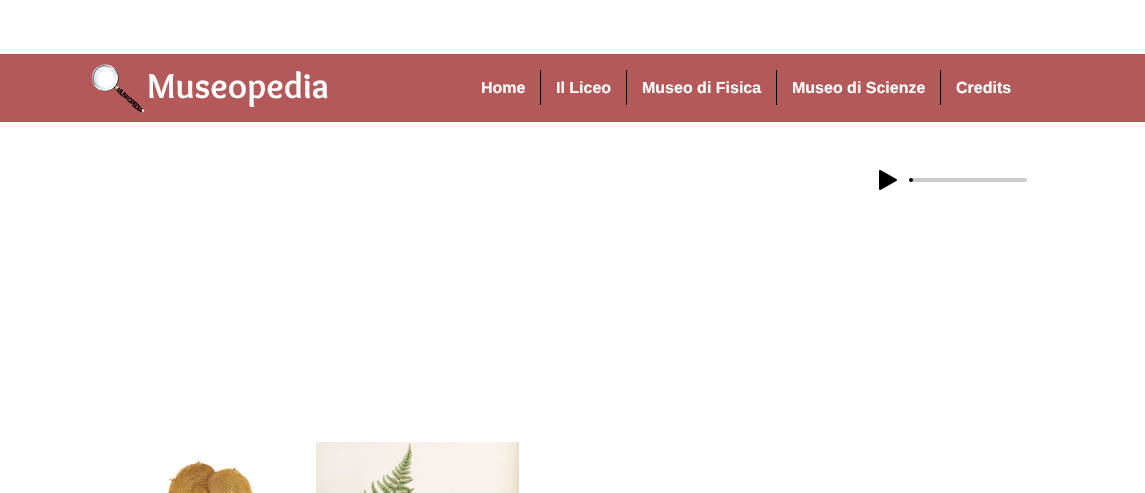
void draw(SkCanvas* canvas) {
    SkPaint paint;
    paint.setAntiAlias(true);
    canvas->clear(0xFFFFFFFF);
    paint.setColor(0xFFB45959);
    canvas->drawRect(SkRect::MakeXYWH(0, 54, 1145, 68), paint);
    canvas->drawImageRect(SkImages::DeferredFromEncodedData(SkData::MakeFromFileName("img1.png")), SkRect::MakeXYWH(91, 64, 54, 50), SkSamplingOptions());
    SkFont font1(fontMgr->matchFamilyStyle("Overlock", SkFontStyle::Bold()), 36);
    font1.setSubpixel(true);
    paint.setColor(0xFFFFFFFF);
    canvas->drawString("Museopedia", 147, 98, font1, paint);
    SkFont font2(fontMgr->matchFamilyStyle("Liberation Sans", SkFontStyle::Bold()), 16);
    font2.setSubpixel(true);
    canvas->drawString("Home", 481, 93, font2, paint);
    paint.setColor(0xFF000000);
    canvas->drawRect(SkRect::MakeXYWH(540, 70, 1, 35), paint);
    paint.setColor(0xFFFFFFFF);
    canvas->drawString("Il Liceo", 556, 93, font2, paint);
    paint.setColor(0xFF000000);
    canvas->drawRect(SkRect::MakeXYWH(626, 70, 1, 35), paint);
    paint.setColor(0xFFFFFFFF);
    canvas->drawString("Museo di Fisica", 642, 93, font2, paint);
    paint.setColor(0xFF000000);
    canvas->drawRect(SkRect::MakeXYWH(776, 70, 1, 35), paint);
    paint.setColor(0xFFFFFFFF);
    canvas->drawString("Museo di Scienze", 792, 93, font2, paint);
    paint.setColor(0xFF000000);
    canvas->drawRect(SkRect::MakeXYWH(940, 70, 1, 35), paint);
    paint.setColor(0xFFFFFFFF);
    canvas->drawString("Credits", 956, 93, font2, paint);
    canvas->drawImageRect(SkImages::DeferredFromEncodedData(SkData::MakeFromFileName("img2.png")), SkRect::MakeXYWH(879, 170, 18, 20), SkSamplingOptions());
    paint.setColor(0xFFCCCCCC);
    canvas->drawRoundRect(SkRect::MakeXYWH(911, 178, 116, 4), 2, 2, paint);
    paint.setColor(0xFF000000);
    canvas->drawCircle(911, 180, 2, paint);
    canvas->drawImageRect(SkImages::DeferredFromEncodedData(SkData::MakeFromFileName("img3.png")), SkRect::MakeXYWH(103, 442, 203, 51), SkSamplingOptions());
    canvas->drawImageRect(SkImages::DeferredFromEncodedData(SkData::MakeFromFileName("img4.png")), SkRect::MakeXYWH(316, 442, 203, 51), SkSamplingOptions());
}
